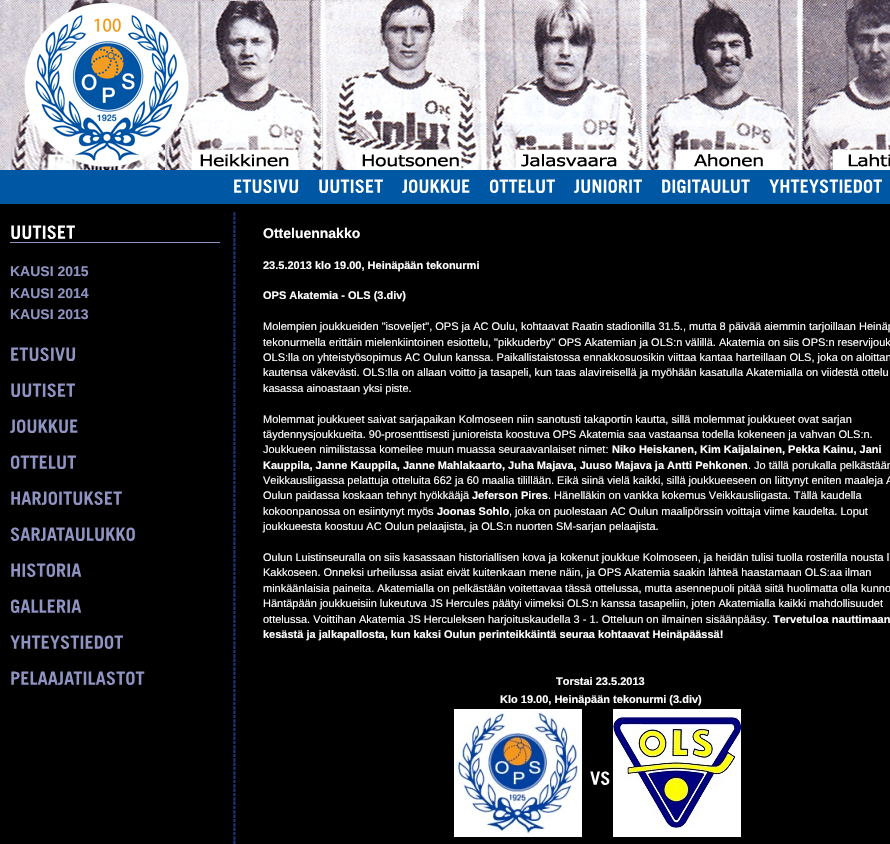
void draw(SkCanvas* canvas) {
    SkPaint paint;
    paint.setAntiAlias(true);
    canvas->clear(0xFFFFFFFF);
    canvas->drawImageRect(SkImages::DeferredFromEncodedData(SkData::MakeFromFileName("img1.png")), SkRect::MakeXYWH(0, 0, 890, 170), SkSamplingOptions());
    paint.setColor(0xFF000000);
    canvas->drawRect(SkRect::MakeXYWH(0, 204, 890, 640), paint);
    paint.setColor(0xFF0057A4);
    canvas->drawRect(SkRect::MakeXYWH(0, 170, 890, 34), paint);
    canvas->drawImageRect(SkImages::DeferredFromEncodedData(SkData::MakeFromFileName("img2.png")), SkRect::MakeXYWH(234, 179, 65, 14), SkSamplingOptions());
    canvas->drawImageRect(SkImages::DeferredFromEncodedData(SkData::MakeFromFileName("img3.png")), SkRect::MakeXYWH(319, 179, 64, 14), SkSamplingOptions());
    canvas->drawImageRect(SkImages::DeferredFromEncodedData(SkData::MakeFromFileName("img4.png")), SkRect::MakeXYWH(402, 179, 68, 14), SkSamplingOptions());
    canvas->drawImageRect(SkImages::DeferredFromEncodedData(SkData::MakeFromFileName("img5.png")), SkRect::MakeXYWH(489, 179, 66, 14), SkSamplingOptions());
    canvas->drawImageRect(SkImages::DeferredFromEncodedData(SkData::MakeFromFileName("img6.png")), SkRect::MakeXYWH(574, 179, 68, 14), SkSamplingOptions());
    canvas->drawImageRect(SkImages::DeferredFromEncodedData(SkData::MakeFromFileName("img7.png")), SkRect::MakeXYWH(662, 179, 88, 14), SkSamplingOptions());
    canvas->drawImageRect(SkImages::DeferredFromEncodedData(SkData::MakeFromFileName("img8.png")), SkRect::MakeXYWH(769, 179, 113, 14), SkSamplingOptions());
    canvas->drawImageRect(SkImages::DeferredFromEncodedData(SkData::MakeFromFileName("img9.png")), SkRect::MakeXYWH(233, 212, 3, 632), SkSamplingOptions());
    paint.setColor(0xFF8F93C1);
    canvas->drawRect(SkRect::MakeXYWH(10, 242, 210, 1), paint);
    canvas->drawImageRect(SkImages::DeferredFromEncodedData(SkData::MakeFromFileName("img10.png")), SkRect::MakeXYWH(11, 225, 64, 14), SkSamplingOptions());
    SkFont font1(fontMgr->matchFamilyStyle("Liberation Sans", SkFontStyle::Bold()), 14);
    font1.setSubpixel(true);
    canvas->drawString("KAUSI 2015", 10, 276, font1, paint);
    canvas->drawString("KAUSI 2014", 10, 298, font1, paint);
    canvas->drawString("KAUSI 2013", 10, 319, font1, paint);
    canvas->drawImageRect(SkImages::DeferredFromEncodedData(SkData::MakeFromFileName("img11.png")), SkRect::MakeXYWH(11, 347, 65, 14), SkSamplingOptions());
    canvas->drawImageRect(SkImages::DeferredFromEncodedData(SkData::MakeFromFileName("img12.png")), SkRect::MakeXYWH(11, 383, 64, 14), SkSamplingOptions());
    canvas->drawImageRect(SkImages::DeferredFromEncodedData(SkData::MakeFromFileName("img13.png")), SkRect::MakeXYWH(10, 419, 68, 14), SkSamplingOptions());
    canvas->drawImageRect(SkImages::DeferredFromEncodedData(SkData::MakeFromFileName("img14.png")), SkRect::MakeXYWH(10, 455, 66, 14), SkSamplingOptions());
    canvas->drawImageRect(SkImages::DeferredFromEncodedData(SkData::MakeFromFileName("img15.png")), SkRect::MakeXYWH(11, 491, 111, 14), SkSamplingOptions());
    canvas->drawImageRect(SkImages::DeferredFromEncodedData(SkData::MakeFromFileName("img16.png")), SkRect::MakeXYWH(10, 527, 125, 14), SkSamplingOptions());
    canvas->drawImageRect(SkImages::DeferredFromEncodedData(SkData::MakeFromFileName("img17.png")), SkRect::MakeXYWH(11, 563, 71, 14), SkSamplingOptions());
    canvas->drawImageRect(SkImages::DeferredFromEncodedData(SkData::MakeFromFileName("img18.png")), SkRect::MakeXYWH(10, 599, 72, 14), SkSamplingOptions());
    canvas->drawImageRect(SkImages::DeferredFromEncodedData(SkData::MakeFromFileName("img19.png")), SkRect::MakeXYWH(10, 635, 113, 14), SkSamplingOptions());
    canvas->drawImageRect(SkImages::DeferredFromEncodedData(SkData::MakeFromFileName("img20.png")), SkRect::MakeXYWH(11, 671, 134, 14), SkSamplingOptions());
    paint.setColor(0xFFFFFFFF);
    canvas->drawString("Otteluennakko", 263, 238, font1, paint);
    SkFont font2(fontMgr->matchFamilyStyle("Liberation Sans", SkFontStyle::Bold()), 11);
    font2.setSubpixel(true);
    canvas->drawString("23.5.2013 klo 19.00, Heinäpään tekonurmi", 263, 269, font2, paint);
    canvas->drawString("OPS Akatemia - OLS (3.div)", 263, 299, font2, paint);
    SkFont font3(fontMgr->matchFamilyStyle("Liberation Sans", SkFontStyle::Normal()), 11);
    font3.setSubpixel(true);
    canvas->drawString("Molempien joukkueiden \"isoveljet\", OPS ja AC Oulu, kohtaavat Raatin stadionilla 31.5., mutta 8 päivää aiemmin tarjoillaan Heinäp", 263, 330, font3, paint);
    canvas->drawString("tekonurmella erittäin mielenkiintoinen esiottelu, \"pikkuderby\" OPS Akatemian ja OLS:n välillä. Akatemia on siis OPS:n reservijouk", 263, 346, font3, paint);
    canvas->drawString("OLS:lla on yhteistyösopimus AC Oulun kanssa. Paikallistaistossa ennakkosuosikin viittaa kantaa harteillaan OLS, joka on aloittan", 263, 361, font3, paint);
    canvas->drawString("kautensa väkevästi. OLS:lla on allaan voitto ja tasapeli, kun taas alavireisellä ja myöhään kasatulla Akatemialla on viidestä ottelu", 263, 376, font3, paint);
    canvas->drawString("kasassa ainoastaan yksi piste.", 263, 392, font3, paint);
    canvas->drawString("Molemmat joukkueet saivat sarjapaikan Kolmoseen niin sanotusti takaportin kautta, sillä molemmat joukkueet ovat sarjan", 263, 423, font3, paint);
    canvas->drawString("täydennysjoukkueita. 90-prosenttisesti junioreista koostuva OPS Akatemia saa vastaansa todella kokeneen ja vahvan OLS:n.", 263, 438, font3, paint);
    canvas->drawString("Joukkueen nimilistassa komeilee muun muassa seuraavanlaiset nimet:", 263, 453, font3, paint);
    canvas->drawString("Niko Heiskanen, Kim Kaijalainen, Pekka Kainu, Jani", 612, 453, font2, paint);
    canvas->drawString("Kauppila, Janne Kauppila, Janne Mahlakaarto, Juha Majava, Juuso Majava ja Antti Pehkonen", 263, 469, font2, paint);
    canvas->drawString(". Jo tällä porukalla pelkästään", 748, 469, font3, paint);
    canvas->drawString("Veikkausliigassa pelattuja otteluita 662 ja 60 maalia tilillään. Eikä siinä vielä kaikki, sillä joukkueeseen on liittynyt eniten maaleja A", 263, 484, font3, paint);
    canvas->drawString("Oulun paidassa koskaan tehnyt hyökkääjä", 263, 499, font3, paint);
    canvas->drawString("Jeferson Pires", 472, 499, font2, paint);
    canvas->drawString(". Hänelläkin on vankka kokemus Veikkausliigasta. Tällä kaudella", 548, 499, font3, paint);
    canvas->drawString("kokoonpanossa on esiintynyt myös", 263, 515, font3, paint);
    canvas->drawString("Joonas Sohlo", 437, 515, font2, paint);
    canvas->drawString(", joka on puolestaan AC Oulun maalipörssin voittaja viime kaudelta. Loput", 509, 515, font3, paint);
    canvas->drawString("joukkueesta koostuu AC Oulun pelaajista, ja OLS:n nuorten SM-sarjan pelaajista.", 263, 530, font3, paint);
    canvas->drawString("Oulun Luistinseuralla on siis kasassaan historiallisen kova ja kokenut joukkue Kolmoseen, ja heidän tulisi tuolla rosterilla nousta l", 263, 561, font3, paint);
    canvas->drawString("Kakkoseen. Onneksi urheilussa asiat eivät kuitenkaan mene näin, ja OPS Akatemia saakin lähteä haastamaan OLS:aa ilman", 263, 576, font3, paint);
    canvas->drawString("minkäänlaisia paineita. Akatemialla on pelkästään voitettavaa tässä ottelussa, mutta asennepuoli pitää siitä huolimatta olla kunno", 263, 592, font3, paint);
    canvas->drawString("Häntäpään joukkueisiin lukeutuva JS Hercules päätyi viimeksi OLS:n kanssa tasapeliin, joten Akatemialla kaikki mahdollisuudet", 263, 607, font3, paint);
    canvas->drawString("ottelussa. Voittihan Akatemia JS Herculeksen harjoituskaudella 3 - 1. Otteluun on ilmainen sisäänpääsy.", 263, 623, font3, paint);
    canvas->drawString("Tervetuloa nauttimaan", 773, 623, font2, paint);
    canvas->drawString("kesästä ja jalkapallosta, kun kaksi Oulun perinteikkäintä seuraa kohtaavat Heinäpäässä!", 263, 638, font2, paint);
    canvas->drawString("Torstai 23.5.2013", 556, 685, font2, paint);
    canvas->drawString("Klo 19.00, Heinäpään tekonurmi (3.div)", 500, 703, font2, paint);
    canvas->drawImageRect(SkImages::DeferredFromEncodedData(SkData::MakeFromFileName("img21.png")), SkRect::MakeXYWH(454, 709, 128, 128), SkSamplingOptions());
    canvas->drawImageRect(SkImages::DeferredFromEncodedData(SkData::MakeFromFileName("img22.png")), SkRect::MakeXYWH(590, 771, 20, 14), SkSamplingOptions());
    canvas->drawImageRect(SkImages::DeferredFromEncodedData(SkData::MakeFromFileName("img23.png")), SkRect::MakeXYWH(613, 709, 128, 128), SkSamplingOptions());
}
